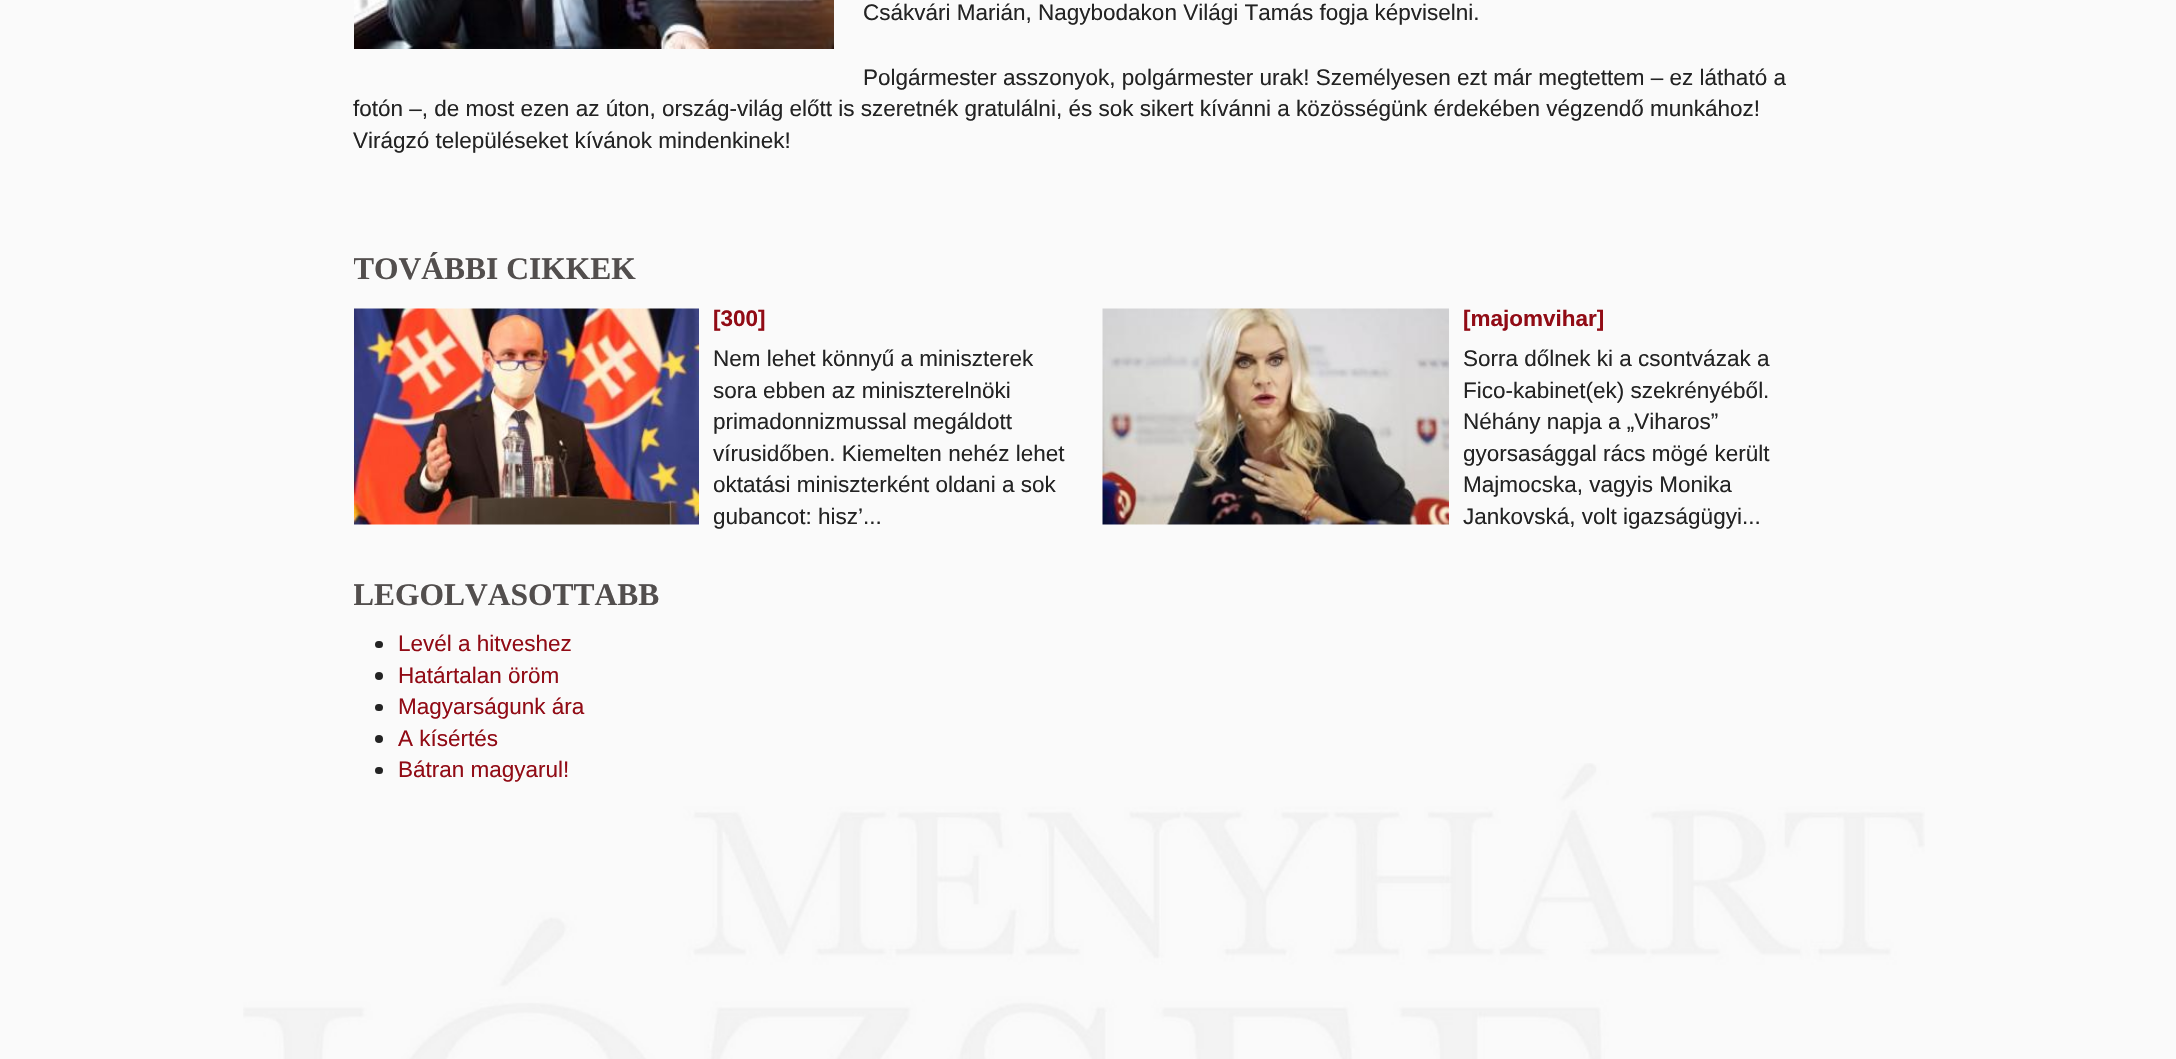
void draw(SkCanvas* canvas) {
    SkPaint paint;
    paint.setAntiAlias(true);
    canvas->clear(0xFFFAFAFA);
    canvas->drawImageRect(SkImages::DeferredFromEncodedData(SkData::MakeFromFileName("img1.png")), SkRect::MakeXYWH(243, 763, 1682, 296), SkSamplingOptions());
    canvas->drawImageRect(SkImages::DeferredFromEncodedData(SkData::MakeFromFileName("img2.png")), SkRect::MakeXYWH(354, 0, 480, 49), SkSamplingOptions());
    SkFont font1(fontMgr->matchFamilyStyle("Liberation Sans", SkFontStyle::Normal()), 22.5f);
    font1.setSubpixel(true);
    paint.setColor(0xFF232323);
    canvas->drawString("Csákvári Marián, Nagybodakon Világi Tamás fogja képviselni.", 863, 20, font1, paint);
    canvas->drawString("Polgármester asszonyok, polgármester urak! Személyesen ezt már megtettem – ez látható a", 863, 85, font1, paint);
    canvas->drawString("fotón –, de most ezen az úton, ország-világ előtt is szeretnék gratulálni, és sok sikert kívánni a közösségünk érdekében végzendő munkához!", 353, 116, font1, paint);
    canvas->drawString("Virágzó településeket kívánok mindenkinek!", 353, 148, font1, paint);
    canvas->save();
    canvas->clipRect(SkRect::MakeXYWH(354, 251, 1470, 280));
    SkFont font2(fontMgr->matchFamilyStyle("Liberation Serif", SkFontStyle::Bold()), 31.5f);
    font2.setSubpixel(true);
    paint.setColor(0xFF524E4D);
    canvas->drawString("TOVÁBBI CIKKEK", 353, 279, font2, paint);
    canvas->restore();
    canvas->drawImageRect(SkImages::DeferredFromEncodedData(SkData::MakeFromFileName("img3.png")), SkRect::MakeXYWH(354, 308, 345, 217), SkSamplingOptions());
    SkFont font3(fontMgr->matchFamilyStyle("Liberation Sans", SkFontStyle::Bold()), 22.5f);
    font3.setSubpixel(true);
    paint.setColor(0xFF910B15);
    canvas->drawString("[300]", 713, 326, font3, paint);
    paint.setColor(0xFF232323);
    canvas->drawString("Nem lehet könnyű a miniszterek", 713, 366, font1, paint);
    canvas->drawString("sora ebben az miniszterelnöki", 713, 398, font1, paint);
    canvas->drawString("primadonnizmussal megáldott", 713, 429, font1, paint);
    canvas->drawString("vírusidőben. Kiemelten nehéz lehet", 713, 461, font1, paint);
    canvas->drawString("oktatási miniszterként oldani a sok", 713, 492, font1, paint);
    canvas->drawString("gubancot: hisz’...", 713, 524, font1, paint);
    canvas->drawImageRect(SkImages::DeferredFromEncodedData(SkData::MakeFromFileName("img4.png")), SkRect::MakeXYWH(1102, 308, 347, 217), SkSamplingOptions());
    paint.setColor(0xFF910B15);
    canvas->drawString("[majomvihar]", 1463, 326, font3, paint);
    paint.setColor(0xFF232323);
    canvas->drawString("Sorra dőlnek ki a csontvázak a", 1463, 366, font1, paint);
    canvas->drawString("Fico-kabinet(ek) szekrényéből.", 1463, 398, font1, paint);
    canvas->drawString("Néhány napja a „Viharos”", 1463, 429, font1, paint);
    canvas->drawString("gyorsasággal rács mögé került", 1463, 461, font1, paint);
    canvas->drawString("Majmocska, vagyis Monika", 1463, 492, font1, paint);
    canvas->drawString("Jankovská, volt igazságügyi...", 1463, 524, font1, paint);
    canvas->save();
    canvas->clipRect(SkRect::MakeXYWH(354, 576, 1470, 209));
    paint.setColor(0xFF524E4D);
    canvas->drawString("LEGOLVASOTTABB", 353, 605, font2, paint);
    canvas->restore();
    paint.setColor(0xFF232323);
    canvas->drawRoundRect(SkRect::MakeXYWH(375, 641, 8, 7), 3.5f, 3.5f, paint);
    paint.setColor(0xFF910B15);
    canvas->drawString("Levél a hitveshez", 398, 651, font1, paint);
    paint.setColor(0xFF232323);
    canvas->drawCircle(379, 676, 4, paint);
    paint.setColor(0xFF910B15);
    canvas->drawString("Határtalan öröm", 398, 683, font1, paint);
    paint.setColor(0xFF232323);
    canvas->drawRoundRect(SkRect::MakeXYWH(375, 704, 8, 7), 3.5f, 3.5f, paint);
    paint.setColor(0xFF910B15);
    canvas->drawString("Magyarságunk ára", 398, 714, font1, paint);
    paint.setColor(0xFF232323);
    canvas->drawCircle(379, 739, 4, paint);
    paint.setColor(0xFF910B15);
    canvas->drawString("A kísértés", 398, 746, font1, paint);
    paint.setColor(0xFF232323);
    canvas->drawRoundRect(SkRect::MakeXYWH(375, 767, 8, 7), 3.5f, 3.5f, paint);
    paint.setColor(0xFF910B15);
    canvas->drawString("Bátran magyarul!", 398, 777, font1, paint);
}
